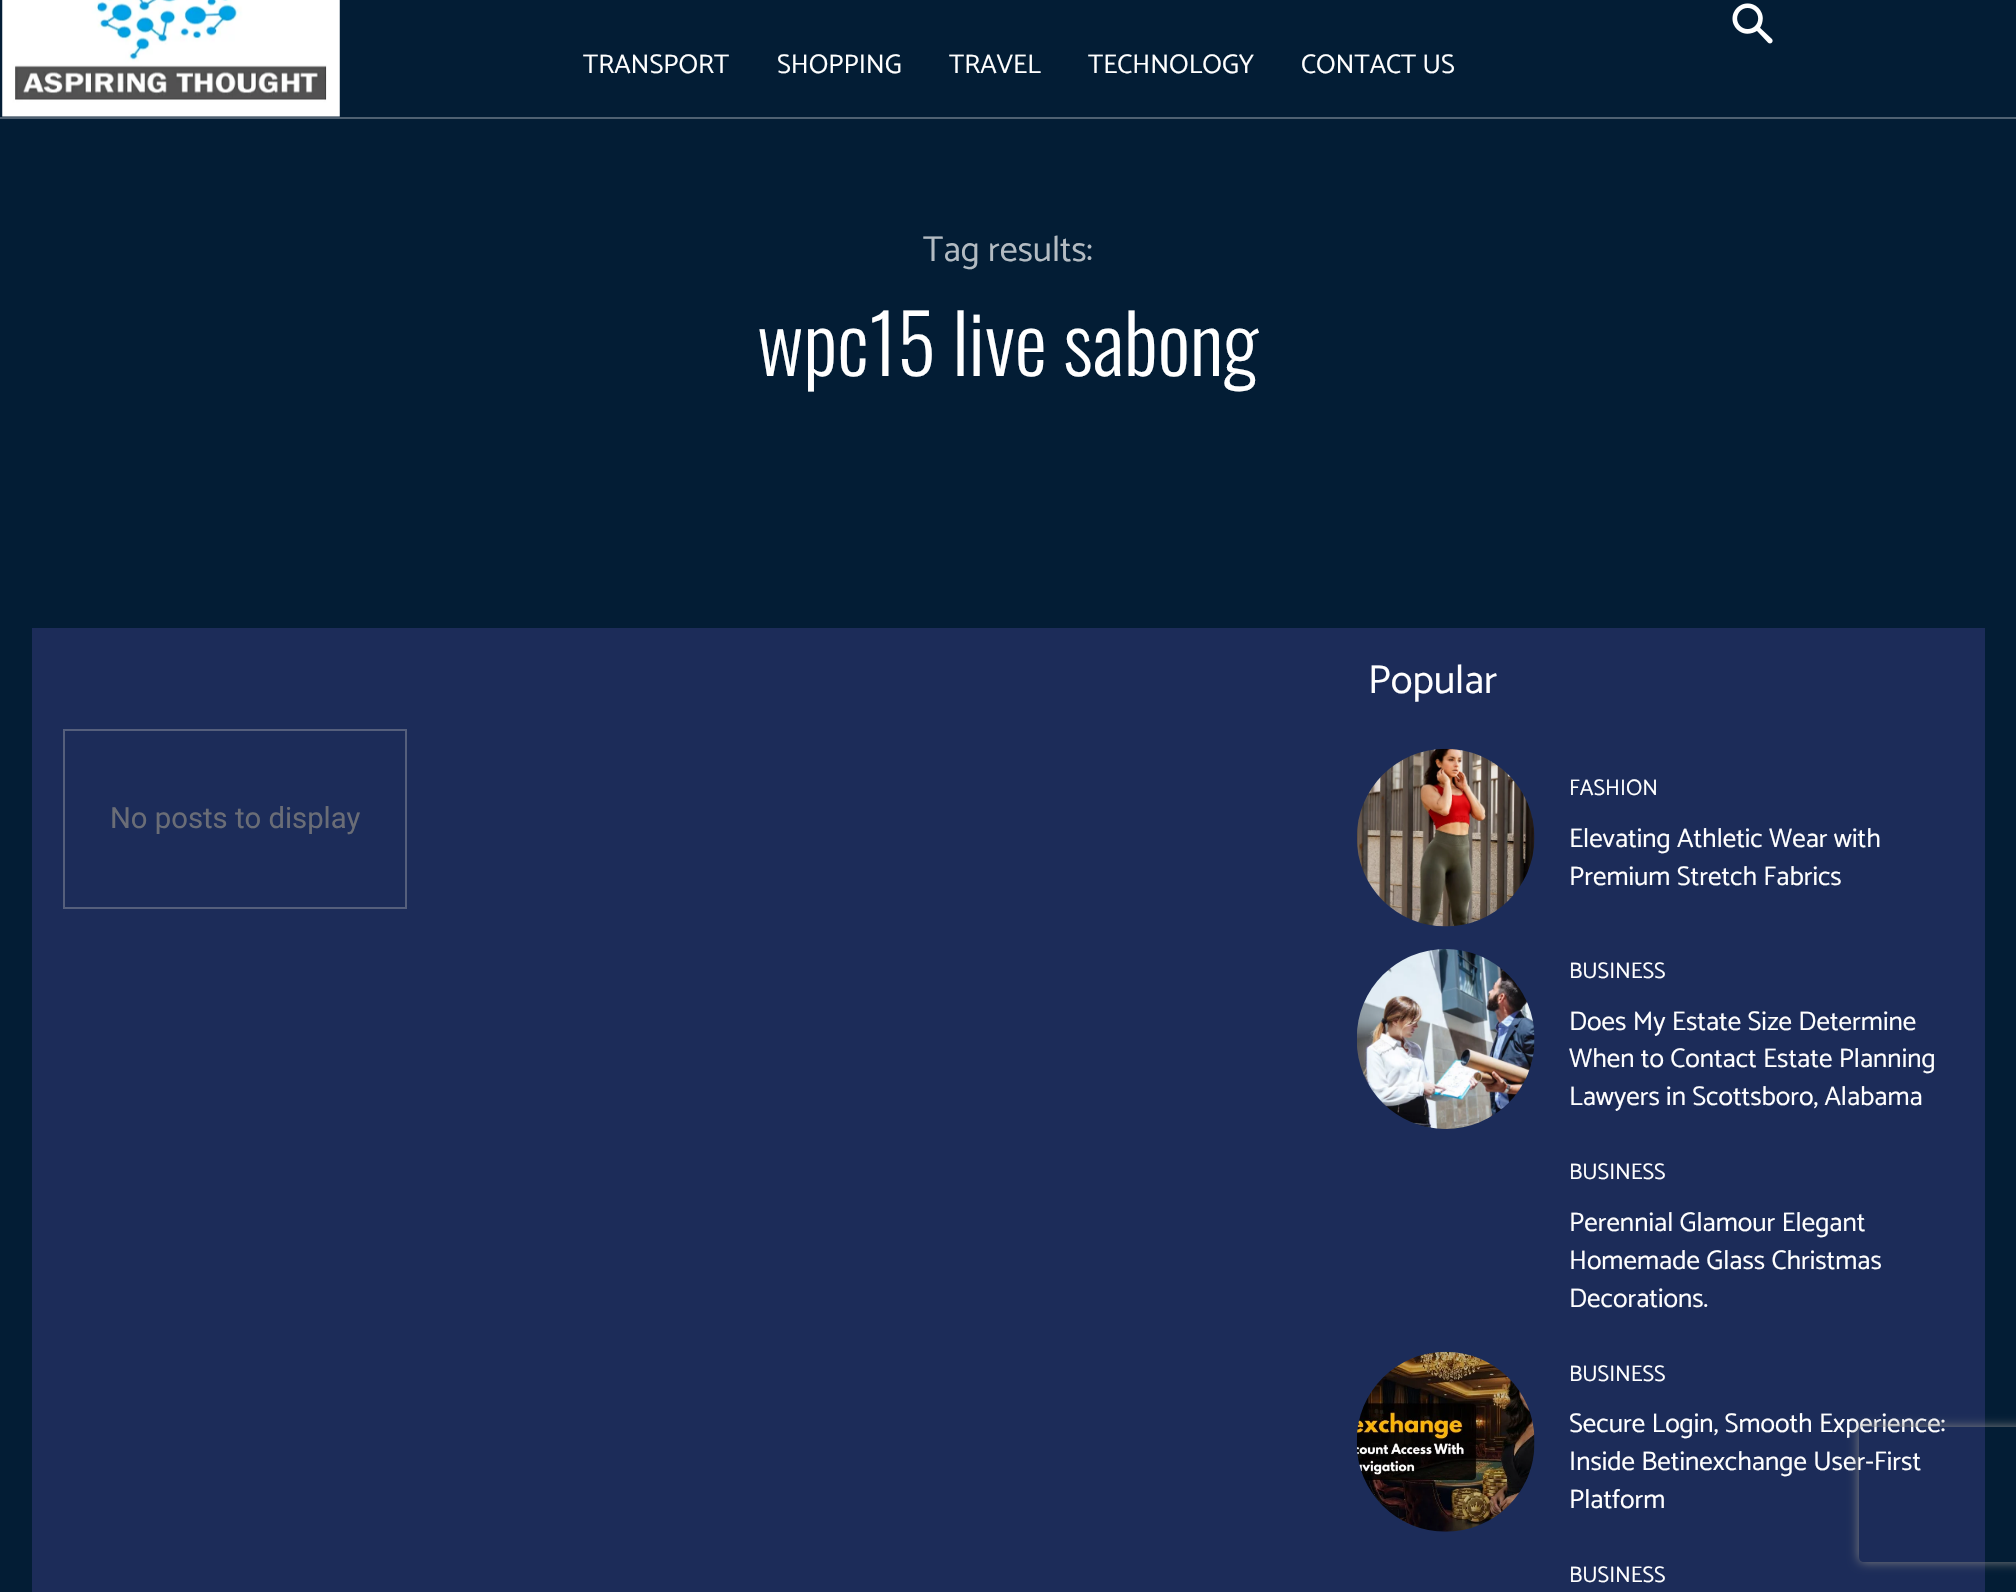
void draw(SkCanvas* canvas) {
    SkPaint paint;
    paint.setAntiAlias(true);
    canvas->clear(0xFF031D35);
    paint.setColor(0xFF4F6172);
    canvas->drawRect(SkRect::MakeXYWH(0, 117, 2016, 2), paint);
    canvas->drawImageRect(SkImages::DeferredFromEncodedData(SkData::MakeFromFileName("img1.png")), SkRect::MakeXYWH(2, 0, 338, 117), SkSamplingOptions());
    canvas->drawImageRect(SkImages::DeferredFromEncodedData(SkData::MakeFromFileName("img2.png")), SkRect::MakeXYWH(1732, 3, 41, 41), SkSamplingOptions());
    SkFont font1(fontMgr->matchFamilyStyle("Catamaran", SkFontStyle::Normal()), 27);
    font1.setSubpixel(true);
    paint.setColor(0xFFFFFFFF);
    canvas->drawString("TRANSPORT", 583, 73, font1, paint);
    canvas->drawString("SHOPPING", 777, 73, font1, paint);
    canvas->drawString("TRAVEL", 949, 73, font1, paint);
    canvas->drawString("TECHNOLOGY", 1088, 73, font1, paint);
    canvas->drawString("CONTACT US", 1301, 73, font1, paint);
    SkFont font2(fontMgr->matchFamilyStyle("Catamaran", SkFontStyle::Normal()), 36);
    font2.setSubpixel(true);
    paint.setColor(0xFFB3BBC2);
    canvas->drawString("Tag results:", 923, 261, font2, paint);
    SkFont font3(fontMgr->matchFamilyStyle("Oswald", SkFontStyle(300, SkFontStyle::kNormal_Width, SkFontStyle::kUpright_Slant)), 81);
    font3.setSubpixel(true);
    paint.setColor(0xFFFFFFFF);
    canvas->drawString("wpc15 live sabong", 757, 376, font3, paint);
    paint.setColor(0xFF1C2C59);
    canvas->drawRect(SkRect::MakeXYWH(32, 628, 1953, 964), paint);
    paint.setStyle(SkPaint::kStroke_Style);
    paint.setStrokeWidth(2);
    paint.setColor(0xFF555F7C);
    canvas->drawRect(SkRect::MakeXYWH(64, 730, 342, 178), paint);
    SkFont font4(fontMgr->matchFamilyStyle("Roboto", SkFontStyle::Normal()), 29.25f);
    font4.setSubpixel(true);
    paint.setStyle(SkPaint::kFill_Style);
    paint.setColor(0xFF6A6D76);
    canvas->drawString("No posts to display", 110, 828, font4, paint);
    SkFont font5(fontMgr->matchFamilyStyle("Catamaran", SkFontStyle::Normal()), 40.5f);
    font5.setSubpixel(true);
    paint.setColor(0xFFFFFFFF);
    canvas->drawString("Popular", 1368, 693, font5, paint);
    canvas->drawImageRect(SkImages::DeferredFromEncodedData(SkData::MakeFromFileName("img3.png")), SkRect::MakeXYWH(1356, 748, 179, 179), SkSamplingOptions());
    SkFont font6(fontMgr->matchFamilyStyle("Catamaran", SkFontStyle::Normal()), 22.5f);
    font6.setSubpixel(true);
    canvas->drawString("FASHION", 1569, 795, font6, paint);
    canvas->drawString("Elevating Athletic Wear with", 1569, 847, font1, paint);
    canvas->drawString("Premium Stretch Fabrics", 1569, 885, font1, paint);
    canvas->drawImageRect(SkImages::DeferredFromEncodedData(SkData::MakeFromFileName("img4.png")), SkRect::MakeXYWH(1357, 949, 178, 180), SkSamplingOptions());
    canvas->drawString("BUSINESS", 1569, 978, font6, paint);
    canvas->drawString("Does My Estate Size Determine", 1569, 1030, font1, paint);
    canvas->drawString("When to Contact Estate Planning", 1569, 1067, font1, paint);
    canvas->drawString("Lawyers in Scottsboro, Alabama", 1569, 1105, font1, paint);
    canvas->drawString("BUSINESS", 1569, 1179, font6, paint);
    canvas->drawString("Perennial Glamour Elegant", 1569, 1231, font1, paint);
    canvas->drawString("Homemade Glass Christmas", 1569, 1269, font1, paint);
    canvas->drawString("Decorations.", 1569, 1307, font1, paint);
    canvas->drawImageRect(SkImages::DeferredFromEncodedData(SkData::MakeFromFileName("img5.png")), SkRect::MakeXYWH(1356, 1351, 179, 181), SkSamplingOptions());
    canvas->drawString("BUSINESS", 1569, 1381, font6, paint);
    canvas->drawString("Secure Login, Smooth Experience:", 1569, 1432, font1, paint);
    canvas->drawString("Inside Betinexchange User-First", 1569, 1470, font1, paint);
    canvas->drawString("Platform", 1569, 1508, font1, paint);
    canvas->drawString("BUSINESS", 1569, 1582, font6, paint);
    canvas->save();
    canvas->clipPath(SkPathBuilder(SkPathFillType::kEvenOdd).moveTo(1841, 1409).lineTo(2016, 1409).lineTo(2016, 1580).lineTo(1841, 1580).close().moveTo(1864, 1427).lineTo(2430, 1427).cubicTo(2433, 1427, 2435, 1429, 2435, 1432).lineTo(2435, 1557).cubicTo(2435, 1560, 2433, 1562, 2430, 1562).lineTo(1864, 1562).cubicTo(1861, 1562, 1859, 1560, 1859, 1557).lineTo(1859, 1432).cubicTo(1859, 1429, 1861, 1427, 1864, 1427).close().detach(), true);
    paint.setColor(0xFF808080);
    paint.setMaskFilter(SkMaskFilter::MakeBlur(kNormal_SkBlurStyle, 5.5f));
    canvas->drawRoundRect(SkRect::MakeXYWH(1859, 1427, 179, 135), 5, 5, paint);
    paint.setMaskFilter(nullptr);
    canvas->restore();
}
